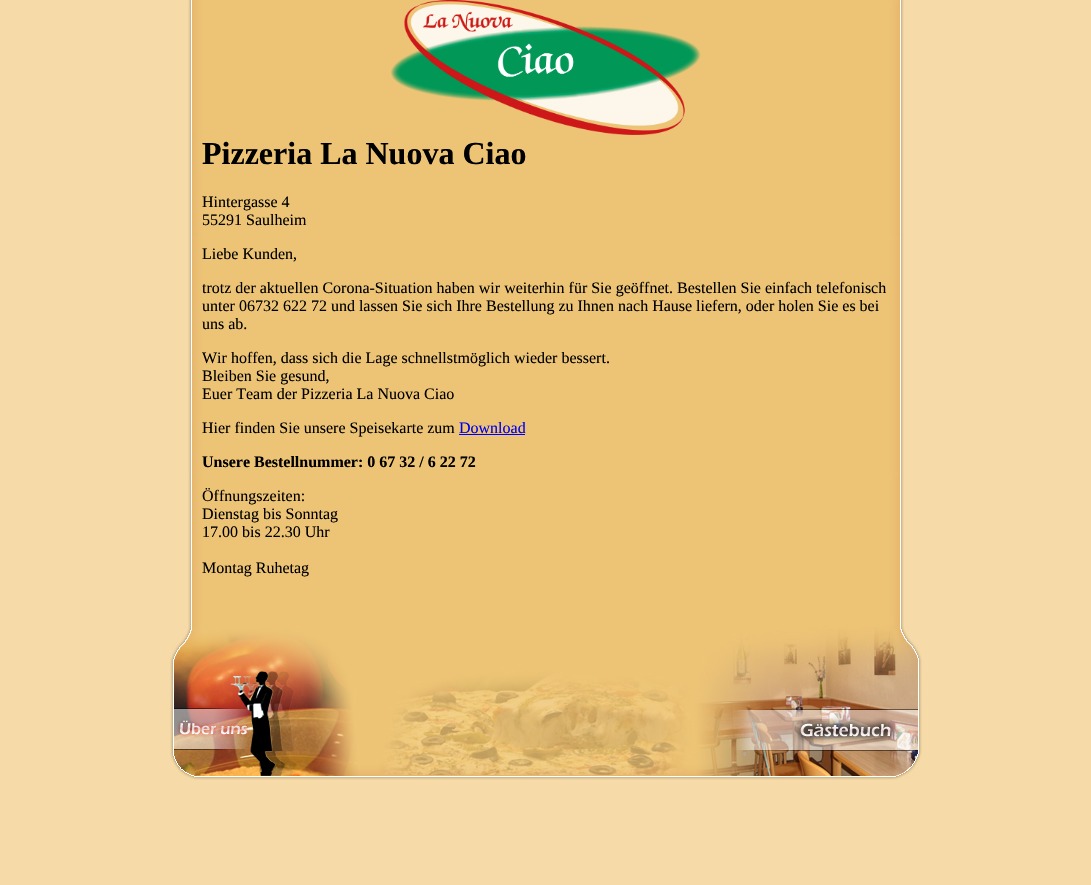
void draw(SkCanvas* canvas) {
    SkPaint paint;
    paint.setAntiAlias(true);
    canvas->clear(0xFFF6DAA7);
    canvas->drawImageRect(SkImages::DeferredFromEncodedData(SkData::MakeFromFileName("img1.png")), SkRect::MakeXYWH(188, 0, 716, 577), SkSamplingOptions());
    canvas->drawImageRect(SkImages::DeferredFromEncodedData(SkData::MakeFromFileName("img2.png")), SkRect::MakeXYWH(391, 0, 310, 135), SkSamplingOptions());
    SkFont font1(fontMgr->matchFamilyStyle("Liberation Serif", SkFontStyle::Bold()), 32);
    font1.setSubpixel(true);
    paint.setColor(0xFF000000);
    canvas->drawString("Pizzeria La Nuova Ciao", 202, 164, font1, paint);
    SkFont font2(fontMgr->matchFamilyStyle("Liberation Serif", SkFontStyle::Normal()), 16);
    font2.setSubpixel(true);
    canvas->drawString("Hintergasse 4", 202, 207, font2, paint);
    canvas->drawString("55291 Saulheim", 202, 225, font2, paint);
    canvas->drawString("Liebe Kunden,", 202, 259, font2, paint);
    canvas->drawString("trotz der aktuellen Corona-Situation haben wir weiterhin für Sie geöffnet. Bestellen Sie einfach telefonisch", 202, 293, font2, paint);
    canvas->drawString("unter 06732 622 72 und lassen Sie sich Ihre Bestellung zu Ihnen nach Hause liefern, oder holen Sie es bei", 202, 311, font2, paint);
    canvas->drawString("uns ab.", 202, 329, font2, paint);
    canvas->drawString("Wir hoffen, dass sich die Lage schnellstmöglich wieder bessert.", 202, 363, font2, paint);
    canvas->drawString("Bleiben Sie gesund,", 202, 381, font2, paint);
    canvas->drawString("Euer Team der Pizzeria La Nuova Ciao", 202, 399, font2, paint);
    canvas->drawString("Hier finden Sie unsere Speisekarte zum", 202, 433, font2, paint);
    paint.setColor(0xFF0000EE);
    canvas->drawString("Download", 459, 433, font2, paint);
    canvas->drawRect(SkRect::MakeXYWH(459, 434, 66, 1), paint);
    SkFont font3(fontMgr->matchFamilyStyle("Liberation Serif", SkFontStyle::Bold()), 16);
    font3.setSubpixel(true);
    paint.setColor(0xFF000000);
    canvas->drawString("Unsere Bestellnummer: 0 67 32 / 6 22 72", 202, 467, font3, paint);
    canvas->drawString("Öffnungszeiten:", 202, 501, font2, paint);
    canvas->drawString("Dienstag bis Sonntag", 202, 519, font2, paint);
    canvas->drawString("17.00 bis 22.30 Uhr", 202, 537, font2, paint);
    canvas->drawString("Montag Ruhetag", 202, 573, font2, paint);
    canvas->drawImageRect(SkImages::DeferredFromEncodedData(SkData::MakeFromFileName("img3.png")), SkRect::MakeXYWH(170, 577, 752, 203), SkSamplingOptions());
}
